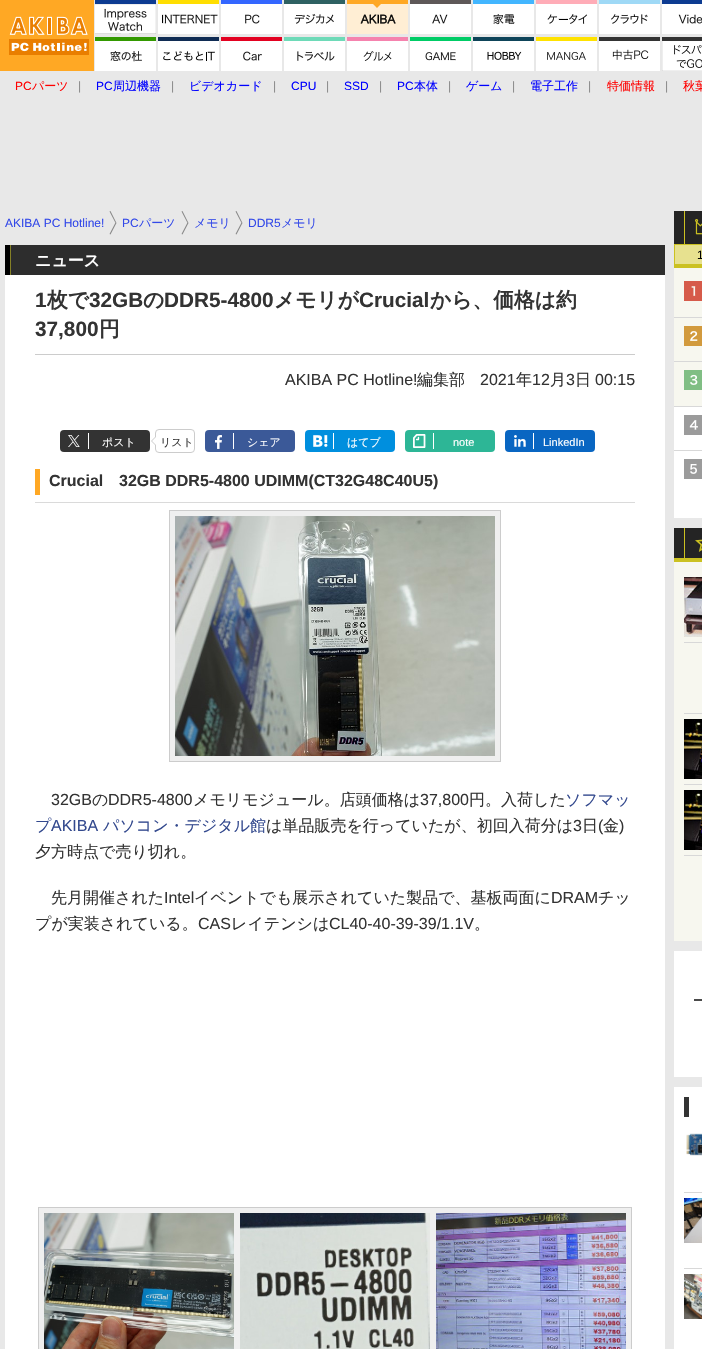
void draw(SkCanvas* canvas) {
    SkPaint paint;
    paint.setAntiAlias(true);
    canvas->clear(0xFFE8E8E8);
    paint.setColor(0xFFFFA824);
    canvas->drawRect(SkRect::MakeXYWH(0, 0, 94, 71), paint);
    canvas->drawImageRect(SkImages::DeferredFromEncodedData(SkData::MakeFromFileName("img1.png")), SkRect::MakeXYWH(9, 16, 80, 39), SkSamplingOptions());
    paint.setColor(0xFF0D3B91);
    canvas->drawRect(SkRect::MakeXYWH(95, 0, 61, 4), paint);
    canvas->drawImageRect(SkImages::DeferredFromEncodedData(SkData::MakeFromFileName("img2.png")), SkRect::MakeXYWH(95, 4, 61, 30), SkSamplingOptions());
    paint.setColor(0xFFFFDE00);
    canvas->drawRect(SkRect::MakeXYWH(158, 0, 61, 4), paint);
    canvas->drawImageRect(SkImages::DeferredFromEncodedData(SkData::MakeFromFileName("img3.png")), SkRect::MakeXYWH(158, 4, 61, 30), SkSamplingOptions());
    paint.setColor(0xFF3366FF);
    canvas->drawRect(SkRect::MakeXYWH(221, 0, 61, 4), paint);
    canvas->drawImageRect(SkImages::DeferredFromEncodedData(SkData::MakeFromFileName("img4.png")), SkRect::MakeXYWH(221, 4, 61, 30), SkSamplingOptions());
    paint.setColor(0xFF2E6162);
    canvas->drawRect(SkRect::MakeXYWH(284, 0, 61, 4), paint);
    canvas->drawImageRect(SkImages::DeferredFromEncodedData(SkData::MakeFromFileName("img5.png")), SkRect::MakeXYWH(284, 4, 61, 30), SkSamplingOptions());
    paint.setColor(0xFFFFA824);
    canvas->drawRect(SkRect::MakeXYWH(347, 0, 61, 34), paint);
    canvas->drawImageRect(SkImages::DeferredFromEncodedData(SkData::MakeFromFileName("img6.png")), SkRect::MakeXYWH(347, 4, 61, 30), SkSamplingOptions());
    paint.setColor(0xFF5E5858);
    canvas->drawRect(SkRect::MakeXYWH(410, 0, 61, 4), paint);
    canvas->drawImageRect(SkImages::DeferredFromEncodedData(SkData::MakeFromFileName("img7.png")), SkRect::MakeXYWH(410, 4, 61, 30), SkSamplingOptions());
    paint.setColor(0xFF42B6FF);
    canvas->drawRect(SkRect::MakeXYWH(473, 0, 61, 4), paint);
    canvas->drawImageRect(SkImages::DeferredFromEncodedData(SkData::MakeFromFileName("img8.png")), SkRect::MakeXYWH(473, 4, 61, 30), SkSamplingOptions());
    paint.setColor(0xFFFFACB7);
    canvas->drawRect(SkRect::MakeXYWH(536, 0, 61, 4), paint);
    canvas->drawImageRect(SkImages::DeferredFromEncodedData(SkData::MakeFromFileName("img9.png")), SkRect::MakeXYWH(536, 4, 61, 30), SkSamplingOptions());
    paint.setColor(0xFF9FD9F6);
    canvas->drawRect(SkRect::MakeXYWH(599, 0, 61, 4), paint);
    canvas->drawImageRect(SkImages::DeferredFromEncodedData(SkData::MakeFromFileName("img10.png")), SkRect::MakeXYWH(599, 4, 61, 30), SkSamplingOptions());
    paint.setColor(0xFF0D3B91);
    canvas->drawRect(SkRect::MakeXYWH(662, 0, 40, 4), paint);
    canvas->drawImageRect(SkImages::DeferredFromEncodedData(SkData::MakeFromFileName("img11.png")), SkRect::MakeXYWH(662, 4, 40, 30), SkSamplingOptions());
    paint.setColor(0xFF339900);
    canvas->drawRect(SkRect::MakeXYWH(95, 37, 61, 4), paint);
    canvas->drawImageRect(SkImages::DeferredFromEncodedData(SkData::MakeFromFileName("img12.png")), SkRect::MakeXYWH(95, 41, 61, 30), SkSamplingOptions());
    paint.setColor(0xFF102C54);
    canvas->drawRect(SkRect::MakeXYWH(158, 37, 61, 4), paint);
    canvas->drawImageRect(SkImages::DeferredFromEncodedData(SkData::MakeFromFileName("img13.png")), SkRect::MakeXYWH(158, 41, 61, 30), SkSamplingOptions());
    paint.setColor(0xFFE30121);
    canvas->drawRect(SkRect::MakeXYWH(221, 37, 61, 4), paint);
    canvas->drawImageRect(SkImages::DeferredFromEncodedData(SkData::MakeFromFileName("img14.png")), SkRect::MakeXYWH(221, 41, 61, 30), SkSamplingOptions());
    paint.setColor(0xFF6EDAB8);
    canvas->drawRect(SkRect::MakeXYWH(284, 37, 61, 4), paint);
    canvas->drawImageRect(SkImages::DeferredFromEncodedData(SkData::MakeFromFileName("img15.png")), SkRect::MakeXYWH(284, 41, 61, 30), SkSamplingOptions());
    paint.setColor(0xFFF583AE);
    canvas->drawRect(SkRect::MakeXYWH(347, 37, 61, 4), paint);
    canvas->drawImageRect(SkImages::DeferredFromEncodedData(SkData::MakeFromFileName("img16.png")), SkRect::MakeXYWH(347, 41, 61, 30), SkSamplingOptions());
    paint.setColor(0xFF00CC66);
    canvas->drawRect(SkRect::MakeXYWH(410, 37, 61, 4), paint);
    canvas->drawImageRect(SkImages::DeferredFromEncodedData(SkData::MakeFromFileName("img17.png")), SkRect::MakeXYWH(410, 41, 61, 30), SkSamplingOptions());
    paint.setColor(0xFF0E4459);
    canvas->drawRect(SkRect::MakeXYWH(473, 37, 61, 4), paint);
    canvas->drawImageRect(SkImages::DeferredFromEncodedData(SkData::MakeFromFileName("img18.png")), SkRect::MakeXYWH(473, 41, 61, 30), SkSamplingOptions());
    paint.setColor(0xFFFFE200);
    canvas->drawRect(SkRect::MakeXYWH(536, 37, 61, 4), paint);
    canvas->drawImageRect(SkImages::DeferredFromEncodedData(SkData::MakeFromFileName("img19.png")), SkRect::MakeXYWH(536, 41, 61, 30), SkSamplingOptions());
    paint.setColor(0xFF333333);
    canvas->drawRect(SkRect::MakeXYWH(599, 37, 61, 4), paint);
    canvas->drawImageRect(SkImages::DeferredFromEncodedData(SkData::MakeFromFileName("img20.png")), SkRect::MakeXYWH(599, 41, 61, 30), SkSamplingOptions());
    canvas->drawRect(SkRect::MakeXYWH(662, 37, 40, 34), paint);
    canvas->drawImageRect(SkImages::DeferredFromEncodedData(SkData::MakeFromFileName("img21.png")), SkRect::MakeXYWH(662, 41, 40, 30), SkSamplingOptions());
    SkFont font1(fontMgr->matchFamilyStyle("Liberation Sans", SkFontStyle::Normal()), 12);
    font1.setSubpixel(true);
    paint.setColor(0xFFFF0000);
    canvas->drawString("PC", 15, 90, font1, paint);
    SkFont font2(fontMgr->matchFamilyStyle("WenQuanYi Zen Hei", SkFontStyle(500, SkFontStyle::kNormal_Width, SkFontStyle::kUpright_Slant)), 12);
    font2.setSubpixel(true);
    canvas->drawString("パーツ", 32, 90, font2, paint);
    paint.setColor(0xFF8A8A8A);
    canvas->drawString("|", 78, 90, font1, paint);
    paint.setColor(0xFF0000FF);
    canvas->drawString("PC", 96, 90, font1, paint);
    canvas->drawString("周辺機器", 113, 90, font2, paint);
    paint.setColor(0xFF8A8A8A);
    canvas->drawString("|", 171, 90, font1, paint);
    paint.setColor(0xFF0000FF);
    canvas->drawString("ビデオカード", 189, 90, font2, paint);
    paint.setColor(0xFF8A8A8A);
    canvas->drawString("|", 273, 90, font1, paint);
    paint.setColor(0xFF0000FF);
    canvas->drawString("CPU", 291, 90, font1, paint);
    paint.setColor(0xFF8A8A8A);
    canvas->drawString("|", 326, 90, font1, paint);
    paint.setColor(0xFF0000FF);
    canvas->drawString("SSD", 344, 90, font1, paint);
    paint.setColor(0xFF8A8A8A);
    canvas->drawString("|", 379, 90, font1, paint);
    paint.setColor(0xFF0000FF);
    canvas->drawString("PC", 397, 90, font1, paint);
    canvas->drawString("本体", 414, 90, font2, paint);
    paint.setColor(0xFF8A8A8A);
    canvas->drawString("|", 448, 90, font1, paint);
    paint.setColor(0xFF0000FF);
    canvas->drawString("ゲーム", 466, 90, font2, paint);
    paint.setColor(0xFF8A8A8A);
    canvas->drawString("|", 512, 90, font1, paint);
    paint.setColor(0xFF0000FF);
    canvas->drawString("電子工作", 530, 90, font2, paint);
    paint.setColor(0xFF8A8A8A);
    canvas->drawString("|", 588, 90, font1, paint);
    paint.setColor(0xFFFF0000);
    canvas->drawString("特価情報", 607, 90, font2, paint);
    paint.setColor(0xFF8A8A8A);
    canvas->drawString("|", 665, 90, font1, paint);
    paint.setColor(0xFFFF0000);
    canvas->drawString("秋葉", 683, 90, font2, paint);
    paint.setColor(0xFF8A8A8A);
    canvas->drawPath(SkPathBuilder().moveTo(109.5f, 211.5f).lineTo(115.5f, 223).lineTo(115.5f, 222.5f).lineTo(109.5f, 234).lineTo(110.5f, 234.5f).lineTo(116.5f, 223).lineTo(110.5f, 211).close().detach(), paint);
    paint.setColor(0xFF3349E8);
    canvas->drawString("AKIBA PC Hotline!", 5, 227, font1, paint);
    paint.setColor(0xFF8A8A8A);
    canvas->drawPath(SkPathBuilder().moveTo(181.5f, 211.5f).lineTo(187.5f, 223).lineTo(187.5f, 222.5f).lineTo(181.5f, 234).lineTo(182.5f, 234.5f).lineTo(188.5f, 223).lineTo(182.5f, 211).close().detach(), paint);
    paint.setColor(0xFF3349E8);
    canvas->drawString("PC", 122, 227, font1, paint);
    canvas->drawString("パーツ", 139, 227, font2, paint);
    paint.setColor(0xFF8A8A8A);
    canvas->drawPath(SkPathBuilder().moveTo(235.5f, 211.5f).lineTo(241.5f, 223).lineTo(241.5f, 222.5f).lineTo(235.5f, 234).lineTo(236.5f, 234.5f).lineTo(242.5f, 223).lineTo(236.5f, 211).close().detach(), paint);
    paint.setColor(0xFF3349E8);
    canvas->drawString("メモリ", 194, 227, font2, paint);
    canvas->drawString("DDR5", 248, 227, font1, paint);
    canvas->drawString("メモリ", 281, 227, font2, paint);
    paint.setColor(0xFFFFFFFF);
    canvas->drawRect(SkRect::MakeXYWH(5, 275, 660, 1074), paint);
    paint.setColor(0xFF2D2D2D);
    canvas->drawRect(SkRect::MakeXYWH(11, 245, 654, 30), paint);
    paint.setColor(0xFF000000);
    canvas->drawRect(SkRect::MakeXYWH(5, 245, 5, 30), paint);
    paint.setColor(0xFF858026);
    canvas->drawRect(SkRect::MakeXYWH(10, 245, 1, 30), paint);
    SkFont font3(fontMgr->matchFamilyStyle("WenQuanYi Zen Hei", SkFontStyle::Bold()), 16);
    font3.setSubpixel(true);
    paint.setColor(0xFFFFFFFF);
    canvas->drawString("ニュース", 35, 266, font3, paint);
    SkFont font4(fontMgr->matchFamilyStyle("Liberation Sans", SkFontStyle::Bold()), 20.75f);
    font4.setSubpixel(true);
    paint.setColor(0xFF333333);
    canvas->drawString("1", 35, 307, font4, paint);
    SkFont font5(fontMgr->matchFamilyStyle("WenQuanYi Zen Hei", SkFontStyle::Bold()), 20.75f);
    font5.setSubpixel(true);
    canvas->drawString("枚で", 47, 307, font5, paint);
    canvas->drawString("32GB", 89, 307, font4, paint);
    canvas->drawString("の", 143, 307, font5, paint);
    canvas->drawString("DDR5-4800", 164, 307, font4, paint);
    canvas->drawString("メモリが", 274, 307, font5, paint);
    canvas->drawString("Crucial", 359, 307, font4, paint);
    canvas->drawString("から、価格は約", 430, 307, font5, paint);
    canvas->drawString("37,800", 35, 336, font4, paint);
    canvas->drawString("円", 99, 336, font5, paint);
    paint.setColor(0xFFCCCCCC);
    canvas->drawRect(SkRect::MakeXYWH(35, 354, 600, 1), paint);
    SkFont font6(fontMgr->matchFamilyStyle("Liberation Sans", SkFontStyle::Normal()), 16);
    font6.setSubpixel(true);
    paint.setColor(0xFF333333);
    canvas->drawString("AKIBA PC Hotline!", 285, 385, font6, paint);
    SkFont font7(fontMgr->matchFamilyStyle("WenQuanYi Zen Hei", SkFontStyle(500, SkFontStyle::kNormal_Width, SkFontStyle::kUpright_Slant)), 16);
    font7.setSubpixel(true);
    canvas->drawString("編集部", 417, 385, font7, paint);
    canvas->drawString("2021", 480, 385, font6, paint);
    canvas->drawString("年", 516, 385, font7, paint);
    canvas->drawString("12", 532, 385, font6, paint);
    canvas->drawString("月", 550, 385, font7, paint);
    canvas->drawString("3", 566, 385, font6, paint);
    canvas->drawString("日", 575, 385, font7, paint);
    canvas->drawString("00:15", 595, 385, font6, paint);
    canvas->drawRoundRect(SkRect::MakeXYWH(60, 430, 90, 22), 4, 4, paint);
    canvas->drawImageRect(SkImages::DeferredFromEncodedData(SkData::MakeFromFileName("img22.png")), SkRect::MakeXYWH(68, 435, 12, 12), SkSamplingOptions());
    paint.setColor(0xFFFFFFFF);
    canvas->drawRect(SkRect::MakeXYWH(88, 433, 1, 16), paint);
    SkFont font8(fontMgr->matchFamilyStyle("WenQuanYi Zen Hei", SkFontStyle(500, SkFontStyle::kNormal_Width, SkFontStyle::kUpright_Slant)), 11);
    font8.setSubpixel(true);
    canvas->drawString("ポスト", 102, 446, font8, paint);
    paint.setStyle(SkPaint::kStroke_Style);
    paint.setStrokeWidth(1);
    paint.setColor(0xFFCCCCCC);
    canvas->drawRoundRect(SkRect::MakeXYWH(155.5f, 429.5f, 39, 23), 3.5f, 3.5f, paint);
    paint.setStyle(SkPaint::kFill_Style);
    canvas->drawPath(SkPathBuilder().moveTo(156, 436).lineTo(156, 446).lineTo(151, 441).close().detach(), paint);
    paint.setColor(0xFFFFFFFF);
    canvas->drawPath(SkPathBuilder().moveTo(157, 436).lineTo(157, 446).lineTo(152, 441).close().detach(), paint);
    paint.setColor(0xFF333333);
    canvas->drawString("リスト", 160, 446, font8, paint);
    paint.setColor(0xFF3B5998);
    canvas->drawRoundRect(SkRect::MakeXYWH(205, 430, 90, 22), 4, 4, paint);
    canvas->drawImageRect(SkImages::DeferredFromEncodedData(SkData::MakeFromFileName("img23.png")), SkRect::MakeXYWH(215, 435, 7, 14), SkSamplingOptions());
    paint.setColor(0xFFFFFFFF);
    canvas->drawRect(SkRect::MakeXYWH(233, 433, 1, 16), paint);
    canvas->drawString("シェア", 247, 446, font8, paint);
    paint.setColor(0xFF008FDE);
    canvas->drawRoundRect(SkRect::MakeXYWH(305, 430, 90, 22), 4, 4, paint);
    canvas->drawImageRect(SkImages::DeferredFromEncodedData(SkData::MakeFromFileName("img24.png")), SkRect::MakeXYWH(313, 435, 15, 12), SkSamplingOptions());
    paint.setColor(0xFFFFFFFF);
    canvas->drawRect(SkRect::MakeXYWH(333, 433, 1, 16), paint);
    canvas->drawString("はてブ", 347, 446, font8, paint);
    paint.setColor(0xFF2DB696);
    canvas->drawRoundRect(SkRect::MakeXYWH(405, 430, 90, 22), 4, 4, paint);
    canvas->drawImageRect(SkImages::DeferredFromEncodedData(SkData::MakeFromFileName("img25.png")), SkRect::MakeXYWH(413, 434, 13, 14), SkSamplingOptions());
    paint.setColor(0xFFFFFFFF);
    canvas->drawRect(SkRect::MakeXYWH(433, 433, 1, 16), paint);
    SkFont font9(fontMgr->matchFamilyStyle("Liberation Sans", SkFontStyle::Normal()), 11);
    font9.setSubpixel(true);
    canvas->drawString("note", 453, 446, font9, paint);
    paint.setColor(0xFF0966C2);
    canvas->drawRoundRect(SkRect::MakeXYWH(505, 430, 90, 22), 4, 4, paint);
    canvas->drawImageRect(SkImages::DeferredFromEncodedData(SkData::MakeFromFileName("img26.png")), SkRect::MakeXYWH(514, 435, 12, 12), SkSamplingOptions());
    paint.setColor(0xFFFFFFFF);
    canvas->drawRect(SkRect::MakeXYWH(533, 433, 1, 16), paint);
    canvas->drawString("LinkedIn", 543, 446, font9, paint);
    paint.setColor(0xFFDADADA);
    canvas->drawRect(SkRect::MakeXYWH(35, 502, 600, 1), paint);
    paint.setColor(0xFFFFA824);
    canvas->drawRect(SkRect::MakeXYWH(35, 469, 5, 26), paint);
    SkFont font10(fontMgr->matchFamilyStyle("Liberation Sans", SkFontStyle::Bold()), 16);
    font10.setSubpixel(true);
    paint.setColor(0xFF333333);
    canvas->drawString("Crucial", 49, 486, font10, paint);
    canvas->drawString("32GB DDR5-4800 UDIMM(CT32G48C40U5)", 119, 486, font10, paint);
    paint.setColor(0xFFEFEFEF);
    canvas->drawRect(SkRect::MakeXYWH(169.5f, 510.5f, 331, 251), paint);
    paint.setStyle(SkPaint::kStroke_Style);
    paint.setColor(0xFFCCCCCC);
    canvas->drawRect(SkRect::MakeXYWH(169.5f, 510.5f, 331, 251), paint);
    canvas->drawImageRect(SkImages::DeferredFromEncodedData(SkData::MakeFromFileName("img27.png")), SkRect::MakeXYWH(175, 516, 320, 240), SkSamplingOptions());
    paint.setStyle(SkPaint::kFill_Style);
    paint.setColor(0xFF333333);
    canvas->drawString("32GB", 51, 805, font6, paint);
    canvas->drawString("の", 92, 805, font7, paint);
    canvas->drawString("DDR5-4800", 108, 805, font6, paint);
    canvas->drawString("メモリモジュール。店頭価格は", 193, 805, font7, paint);
    canvas->drawString("37,800", 420, 805, font6, paint);
    canvas->drawString("円。入荷した", 469, 805, font7, paint);
    paint.setColor(0xFF33498E);
    canvas->drawString("ソフマッ", 565, 805, font7, paint);
    canvas->drawString("プ", 35, 831, font7, paint);
    canvas->drawString("AKIBA", 51, 831, font6, paint);
    canvas->drawString("パソコン・デジタル館", 103, 831, font7, paint);
    paint.setColor(0xFF333333);
    canvas->drawString("は単品販売を行っていたが、初回入荷分は", 266, 831, font7, paint);
    canvas->drawString("3", 573, 831, font6, paint);
    canvas->drawString("日", 582, 831, font7, paint);
    canvas->drawString("(", 598, 831, font6, paint);
    canvas->drawString("金", 603, 831, font7, paint);
    canvas->drawString(")", 619, 831, font6, paint);
    canvas->drawString("夕方時点で売り切れ。", 35, 857, font7, paint);
    canvas->drawString("先月開催された", 51, 903, font7, paint);
    canvas->drawString("Intel", 164, 903, font6, paint);
    canvas->drawString("イベントでも展示されていた製品で、基板両面に", 194, 903, font7, paint);
    canvas->drawString("DRAM", 551, 903, font6, paint);
    canvas->drawString("チッ", 598, 903, font7, paint);
    canvas->drawString("プが実装されている。", 35, 929, font7, paint);
    canvas->drawString("CAS", 198, 929, font6, paint);
    canvas->drawString("レイテンシは", 231, 929, font7, paint);
    canvas->drawString("CL40-40-39-39/1.1V", 329, 929, font6, paint);
    canvas->drawString("。", 474, 929, font7, paint);
    paint.setColor(0xFFEFEFEF);
    canvas->drawRect(SkRect::MakeXYWH(38.5f, 1207.5f, 593, 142), paint);
    paint.setStyle(SkPaint::kStroke_Style);
    paint.setColor(0xFFCCCCCC);
    canvas->drawRect(SkRect::MakeXYWH(38.5f, 1207.5f, 593, 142), paint);
    canvas->drawImageRect(SkImages::DeferredFromEncodedData(SkData::MakeFromFileName("img28.png")), SkRect::MakeXYWH(44, 1213, 190, 136), SkSamplingOptions());
    canvas->drawImageRect(SkImages::DeferredFromEncodedData(SkData::MakeFromFileName("img29.png")), SkRect::MakeXYWH(240, 1213, 190, 136), SkSamplingOptions());
    canvas->drawImageRect(SkImages::DeferredFromEncodedData(SkData::MakeFromFileName("img30.png")), SkRect::MakeXYWH(436, 1213, 190, 136), SkSamplingOptions());
    paint.setStyle(SkPaint::kFill_Style);
    paint.setColor(0xFF242424);
    canvas->drawRect(SkRect::MakeXYWH(674, 211, 28, 33), paint);
    paint.setColor(0xFFCBC121);
    canvas->drawRect(SkRect::MakeXYWH(674, 244, 28, 1), paint);
    canvas->drawRect(SkRect::MakeXYWH(684, 211, 1, 34), paint);
    canvas->drawImageRect(SkImages::DeferredFromEncodedData(SkData::MakeFromFileName("img31.png")), SkRect::MakeXYWH(695, 219, 7, 16), SkSamplingOptions());
    paint.setColor(0xFFE7E18F);
    canvas->drawRect(SkRect::MakeXYWH(675, 245, 27, 19), paint);
    paint.setColor(0xFFCBC121);
    canvas->drawRect(SkRect::MakeXYWH(674, 264, 28, 4), paint);
    canvas->drawRect(SkRect::MakeXYWH(674, 245, 1, 23), paint);
    paint.setColor(0xFF000000);
    canvas->drawString("1", 697, 259, font1, paint);
    paint.setColor(0xFFF7F7EF);
    canvas->drawRect(SkRect::MakeXYWH(674, 268, 28, 49), paint);
    paint.setColor(0xFFD8D8D8);
    canvas->drawRect(SkRect::MakeXYWH(674, 317, 28, 1), paint);
    canvas->drawImageRect(SkImages::DeferredFromEncodedData(SkData::MakeFromFileName("img32.png")), SkRect::MakeXYWH(684, 281, 18, 20), SkSamplingOptions());
    paint.setColor(0xFFF7F7EF);
    canvas->drawRect(SkRect::MakeXYWH(674, 318, 28, 43), paint);
    paint.setColor(0xFFD8D8D8);
    canvas->drawRect(SkRect::MakeXYWH(674, 361, 28, 1), paint);
    canvas->drawImageRect(SkImages::DeferredFromEncodedData(SkData::MakeFromFileName("img33.png")), SkRect::MakeXYWH(684, 326, 18, 20), SkSamplingOptions());
    paint.setColor(0xFFF7F7EF);
    canvas->drawRect(SkRect::MakeXYWH(674, 362, 28, 44), paint);
    paint.setColor(0xFFD8D8D8);
    canvas->drawRect(SkRect::MakeXYWH(674, 406, 28, 1), paint);
    canvas->drawImageRect(SkImages::DeferredFromEncodedData(SkData::MakeFromFileName("img34.png")), SkRect::MakeXYWH(684, 370, 18, 20), SkSamplingOptions());
    paint.setColor(0xFFFFFFFF);
    canvas->drawRect(SkRect::MakeXYWH(674, 407, 28, 111), paint);
    paint.setColor(0xFFD8D8D8);
    canvas->drawRect(SkRect::MakeXYWH(674, 450, 28, 1), paint);
    canvas->drawImageRect(SkImages::DeferredFromEncodedData(SkData::MakeFromFileName("img35.png")), SkRect::MakeXYWH(684, 415, 18, 20), SkSamplingOptions());
    canvas->drawImageRect(SkImages::DeferredFromEncodedData(SkData::MakeFromFileName("img36.png")), SkRect::MakeXYWH(684, 459, 18, 20), SkSamplingOptions());
    paint.setColor(0xFFF7F7EF);
    canvas->drawRect(SkRect::MakeXYWH(674, 562, 28, 379), paint);
    paint.setColor(0xFF242424);
    canvas->drawRect(SkRect::MakeXYWH(674, 528, 28, 30), paint);
    paint.setColor(0xFFCBC121);
    canvas->drawRect(SkRect::MakeXYWH(674, 558, 28, 4), paint);
    canvas->drawRect(SkRect::MakeXYWH(684, 528, 1, 34), paint);
    canvas->drawImageRect(SkImages::DeferredFromEncodedData(SkData::MakeFromFileName("img37.png")), SkRect::MakeXYWH(695, 539, 7, 13), SkSamplingOptions());
    paint.setColor(0xFFD8D8D8);
    canvas->drawRect(SkRect::MakeXYWH(684, 642, 18, 1), paint);
    canvas->drawImageRect(SkImages::DeferredFromEncodedData(SkData::MakeFromFileName("img38.png")), SkRect::MakeXYWH(684, 577, 18, 60), SkSamplingOptions());
    canvas->drawRect(SkRect::MakeXYWH(684, 713, 18, 1), paint);
    canvas->drawRect(SkRect::MakeXYWH(684, 784, 18, 1), paint);
    canvas->drawImageRect(SkImages::DeferredFromEncodedData(SkData::MakeFromFileName("img39.png")), SkRect::MakeXYWH(684, 719, 18, 60), SkSamplingOptions());
    canvas->drawRect(SkRect::MakeXYWH(684, 855, 18, 1), paint);
    canvas->drawImageRect(SkImages::DeferredFromEncodedData(SkData::MakeFromFileName("img39.png")), SkRect::MakeXYWH(684, 790, 18, 60), SkSamplingOptions());
    paint.setColor(0xFFFFFFFF);
    canvas->drawRect(SkRect::MakeXYWH(674, 951, 28, 126), paint);
    paint.setColor(0xFF4A4A4A);
    canvas->drawRect(SkRect::MakeXYWH(694, 999, 8, 2), paint);
    paint.setColor(0xFFFFFFFF);
    canvas->drawRect(SkRect::MakeXYWH(674, 1087, 28, 262), paint);
    paint.setColor(0xFF333333);
    canvas->drawRect(SkRect::MakeXYWH(684, 1097, 5, 20), paint);
    paint.setColor(0xFFD8D8D8);
    canvas->drawRect(SkRect::MakeXYWH(684, 1192, 18, 1), paint);
    canvas->drawImageRect(SkImages::DeferredFromEncodedData(SkData::MakeFromFileName("img40.png")), SkRect::MakeXYWH(686, 1133, 16, 23), SkSamplingOptions());
    canvas->drawRect(SkRect::MakeXYWH(684, 1268, 18, 1), paint);
    canvas->drawImageRect(SkImages::DeferredFromEncodedData(SkData::MakeFromFileName("img41.png")), SkRect::MakeXYWH(684, 1198, 18, 45), SkSamplingOptions());
    canvas->drawImageRect(SkImages::DeferredFromEncodedData(SkData::MakeFromFileName("img42.png")), SkRect::MakeXYWH(684, 1274, 18, 45), SkSamplingOptions());
}
